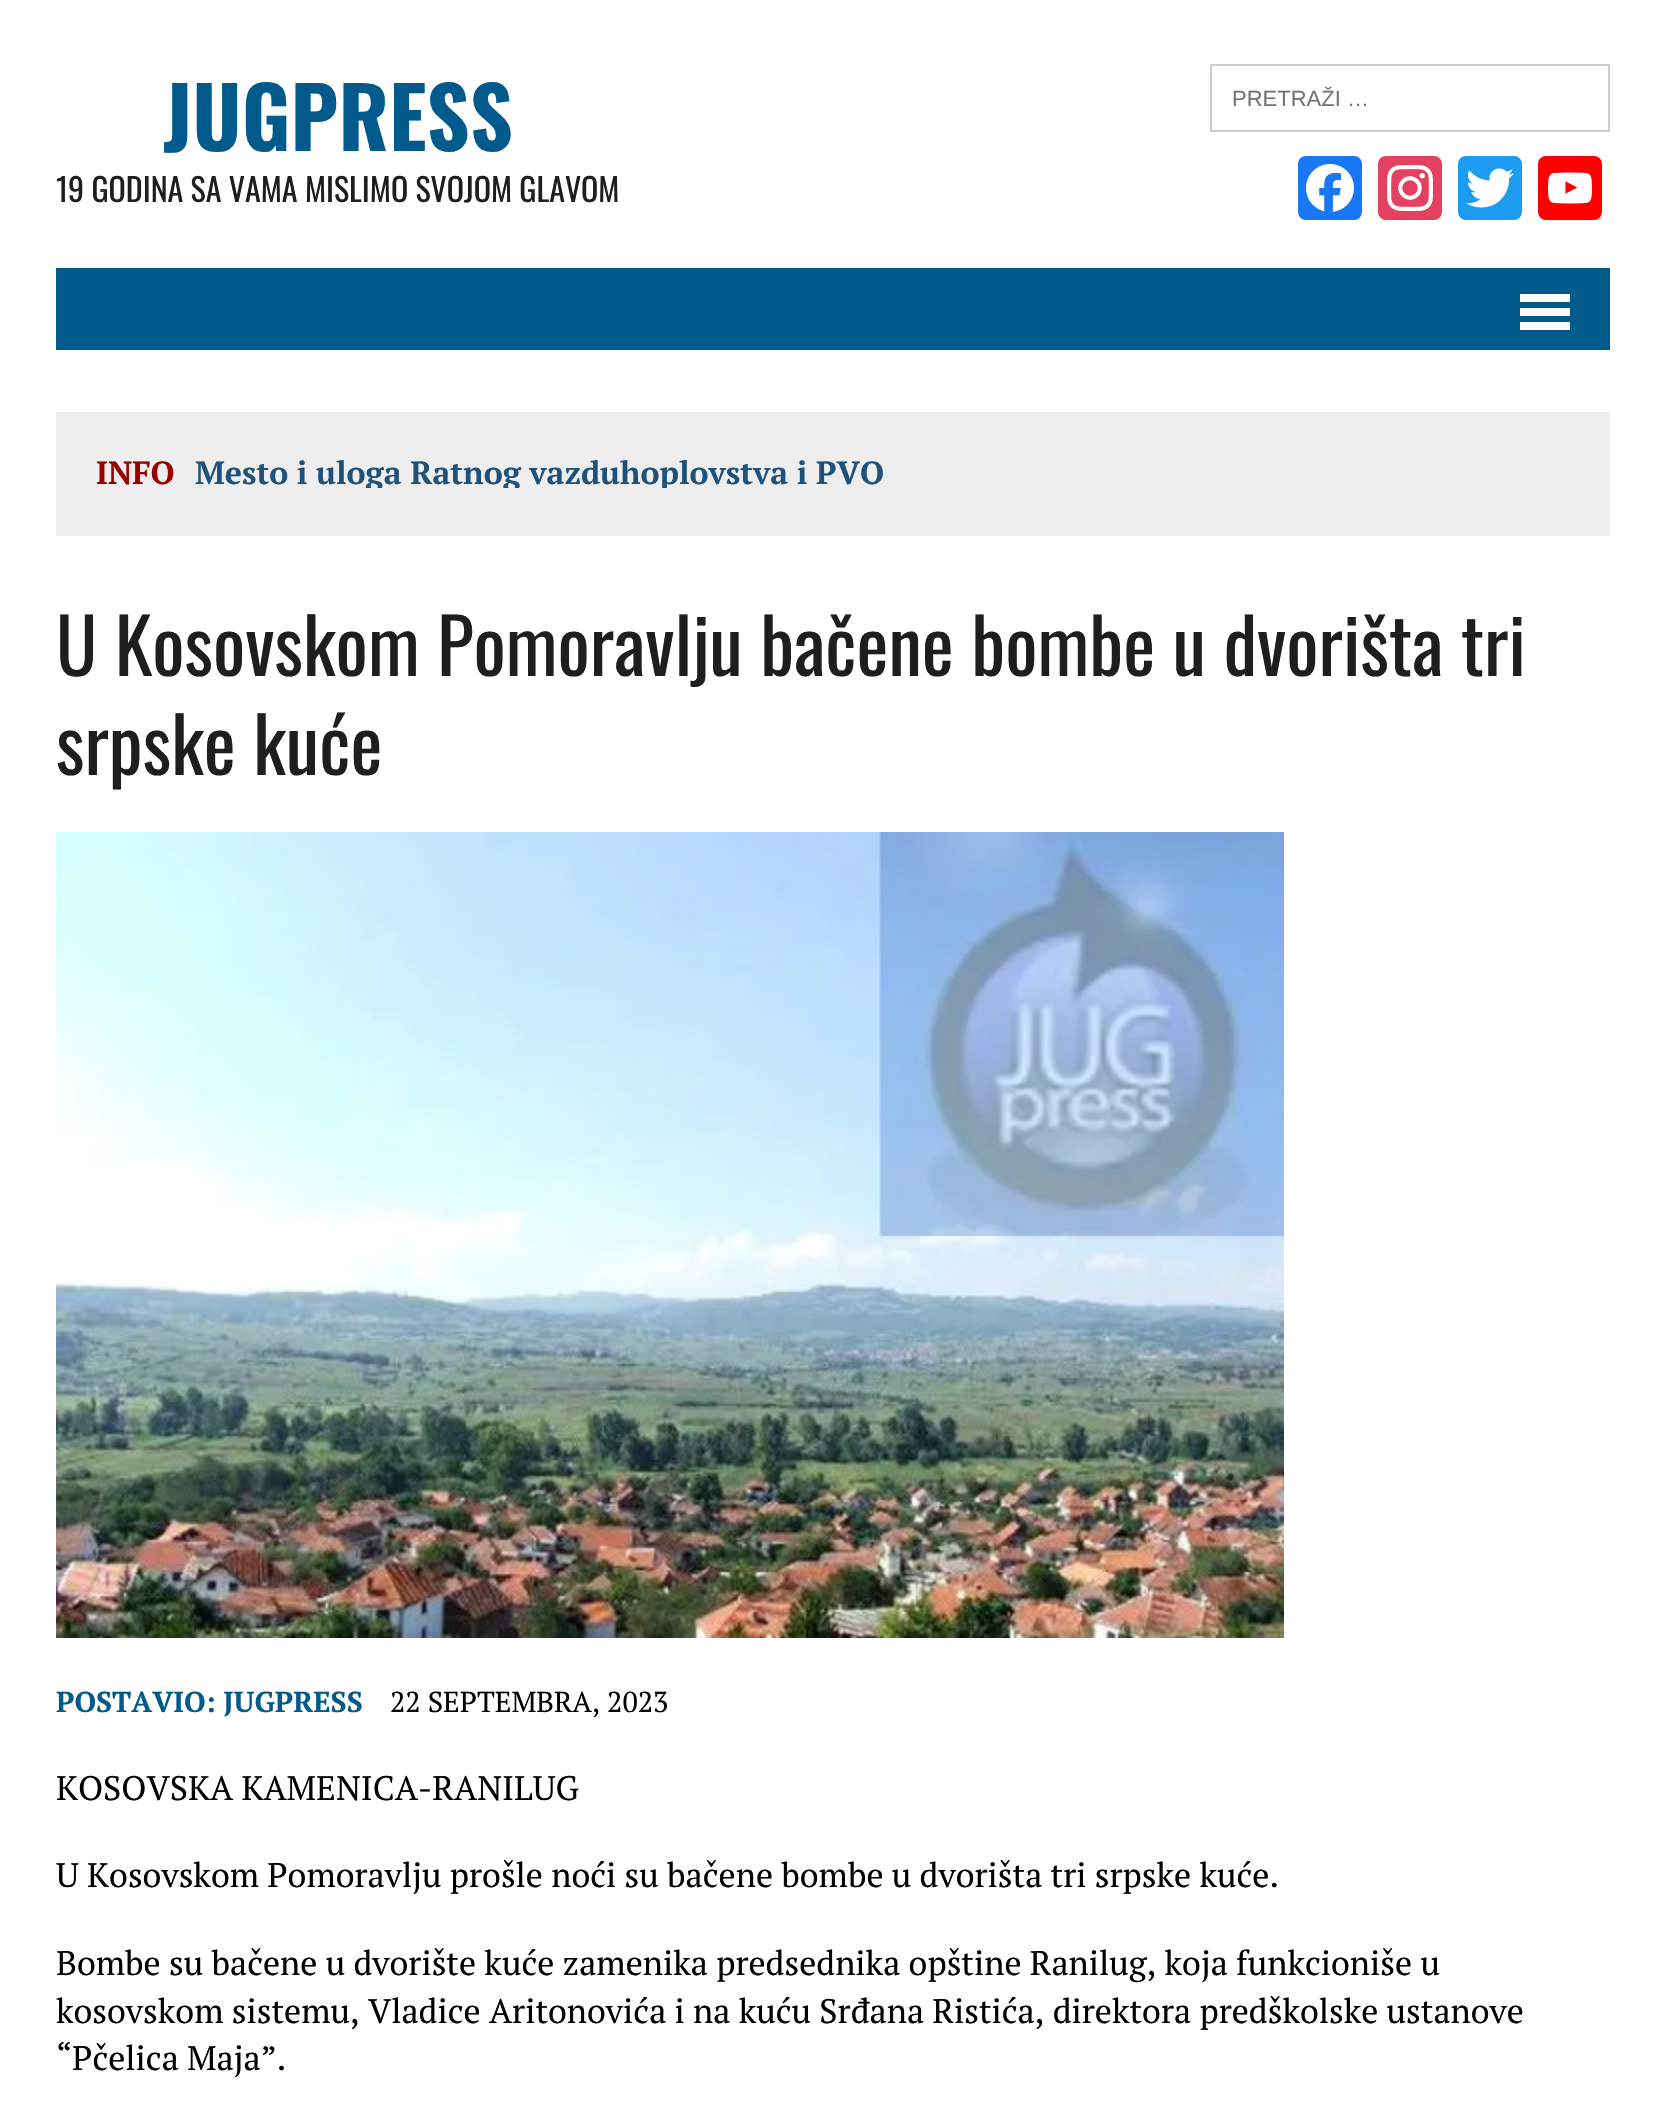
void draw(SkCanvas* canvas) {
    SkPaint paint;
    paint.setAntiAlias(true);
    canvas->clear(0xFFFFFFFF);
    SkFont font1(fontMgr->matchFamilyStyle("Oswald", SkFontStyle::Bold()), 84);
    font1.setSubpixel(true);
    paint.setColor(0xFF005A8C);
    canvas->drawString("JUGPRESS", 163, 151, font1, paint);
    SkFont font2(fontMgr->matchFamilyStyle("Oswald", SkFontStyle::Normal()), 32);
    font2.setSubpixel(true);
    paint.setColor(0xFF1F1E1E);
    canvas->drawString("19 GODINA SA VAMA MISLIMO SVOJOM GLAVOM", 56, 202, font2, paint);
    paint.setStyle(SkPaint::kStroke_Style);
    paint.setStrokeWidth(2);
    paint.setColor(0xFFCDCDCD);
    canvas->drawRect(SkRect::MakeXYWH(1211, 65, 398, 66), paint);
    SkFont font3(fontMgr->matchFamilyStyle("Liberation Sans", SkFontStyle::Normal()), 22);
    font3.setSubpixel(true);
    paint.setStyle(SkPaint::kFill_Style);
    paint.setColor(0xFF757575);
    canvas->drawString("PRETRAŽI …", 1232, 106, font3, paint);
    paint.setColor(0xFF1877F2);
    canvas->drawRoundRect(SkRect::MakeXYWH(1298, 156, 64, 64), 8, 8, paint);
    canvas->drawImageRect(SkImages::DeferredFromEncodedData(SkData::MakeFromFileName("img1.png")), SkRect::MakeXYWH(1306, 164, 48, 48), SkSamplingOptions());
    paint.setColor(0xFFE4405F);
    canvas->drawRoundRect(SkRect::MakeXYWH(1378, 156, 64, 64), 8, 8, paint);
    canvas->drawImageRect(SkImages::DeferredFromEncodedData(SkData::MakeFromFileName("img2.png")), SkRect::MakeXYWH(1387, 165, 46, 46), SkSamplingOptions());
    paint.setColor(0xFF1D9BF0);
    canvas->drawRoundRect(SkRect::MakeXYWH(1458, 156, 64, 64), 8, 8, paint);
    canvas->drawImageRect(SkImages::DeferredFromEncodedData(SkData::MakeFromFileName("img3.png")), SkRect::MakeXYWH(1466, 168, 48, 40), SkSamplingOptions());
    paint.setColor(0xFFFF0000);
    canvas->drawRoundRect(SkRect::MakeXYWH(1538, 156, 64, 64), 8, 8, paint);
    canvas->drawImageRect(SkImages::DeferredFromEncodedData(SkData::MakeFromFileName("img4.png")), SkRect::MakeXYWH(1548, 172, 44, 32), SkSamplingOptions());
    paint.setColor(0xFF005A8C);
    canvas->drawRect(SkRect::MakeXYWH(56, 268, 1554, 82), paint);
    paint.setColor(0xFFFFFFFF);
    canvas->drawRect(SkRect::MakeXYWH(1520, 294, 50, 8), paint);
    canvas->drawRect(SkRect::MakeXYWH(1520, 308, 50, 8), paint);
    canvas->drawRect(SkRect::MakeXYWH(1520, 322, 50, 8), paint);
    paint.setColor(0xFFEEEEEE);
    canvas->drawRect(SkRect::MakeXYWH(56, 412, 1554, 124), paint);
    SkFont font4(fontMgr->matchFamilyStyle("PT Serif", SkFontStyle::Bold()), 32);
    font4.setSubpixel(true);
    paint.setColor(0xFF990000);
    canvas->drawString("INFO", 96, 484, font4, paint);
    canvas->save();
    canvas->clipRect(SkRect::MakeXYWH(194, 432, 690, 56));
    paint.setColor(0xFF1F527B);
    canvas->drawString("Mesto i uloga Ratnog vazduhoplovstva i PVO", 195, 484, font4, paint);
    canvas->restore();
    SkFont font5(fontMgr->matchFamilyStyle("Oswald", SkFontStyle::Normal()), 76);
    font5.setSubpixel(true);
    paint.setColor(0xFF1F1E1E);
    canvas->drawString("U Kosovskom Pomoravlju bačene bombe u dvorišta tri", 56, 676, font5, paint);
    canvas->drawString("srpske kuće", 56, 775, font5, paint);
    canvas->drawImageRect(SkImages::DeferredFromEncodedData(SkData::MakeFromFileName("img5.png")), SkRect::MakeXYWH(56, 832, 1228, 806), SkSamplingOptions());
    SkFont font6(fontMgr->matchFamilyStyle("PT Serif", SkFontStyle::Bold()), 28.75f);
    font6.setSubpixel(true);
    paint.setColor(0xFF005A8C);
    canvas->drawString("POSTAVIO: JUGPRESS", 56, 1712, font6, paint);
    SkFont font7(fontMgr->matchFamilyStyle("PT Serif", SkFontStyle::Normal()), 28.75f);
    font7.setSubpixel(true);
    paint.setColor(0xFF000000);
    canvas->drawString("22 SEPTEMBRA, 2023", 390, 1712, font7, paint);
    SkFont font8(fontMgr->matchFamilyStyle("PT Serif", SkFontStyle::Normal()), 34);
    font8.setSubpixel(true);
    canvas->drawString("KOSOVSKA KAMENICA-RANILUG", 56, 1800, font8, paint);
    canvas->drawString("U Kosovskom Pomoravlju prošle noći su bačene bombe u dvorišta tri srpske kuće.", 56, 1887, font8, paint);
    canvas->drawString("Bombe su bačene u dvorište kuće zamenika predsednika opštine Ranilug, koja funkcioniše u", 56, 1975, font8, paint);
    canvas->drawString("kosovskom sistemu, Vladice Aritonovića i na kuću Srđana Ristića, direktora predškolske ustanove", 56, 2023, font8, paint);
    canvas->drawString("“Pčelica Maja”.", 56, 2070, font8, paint);
}
